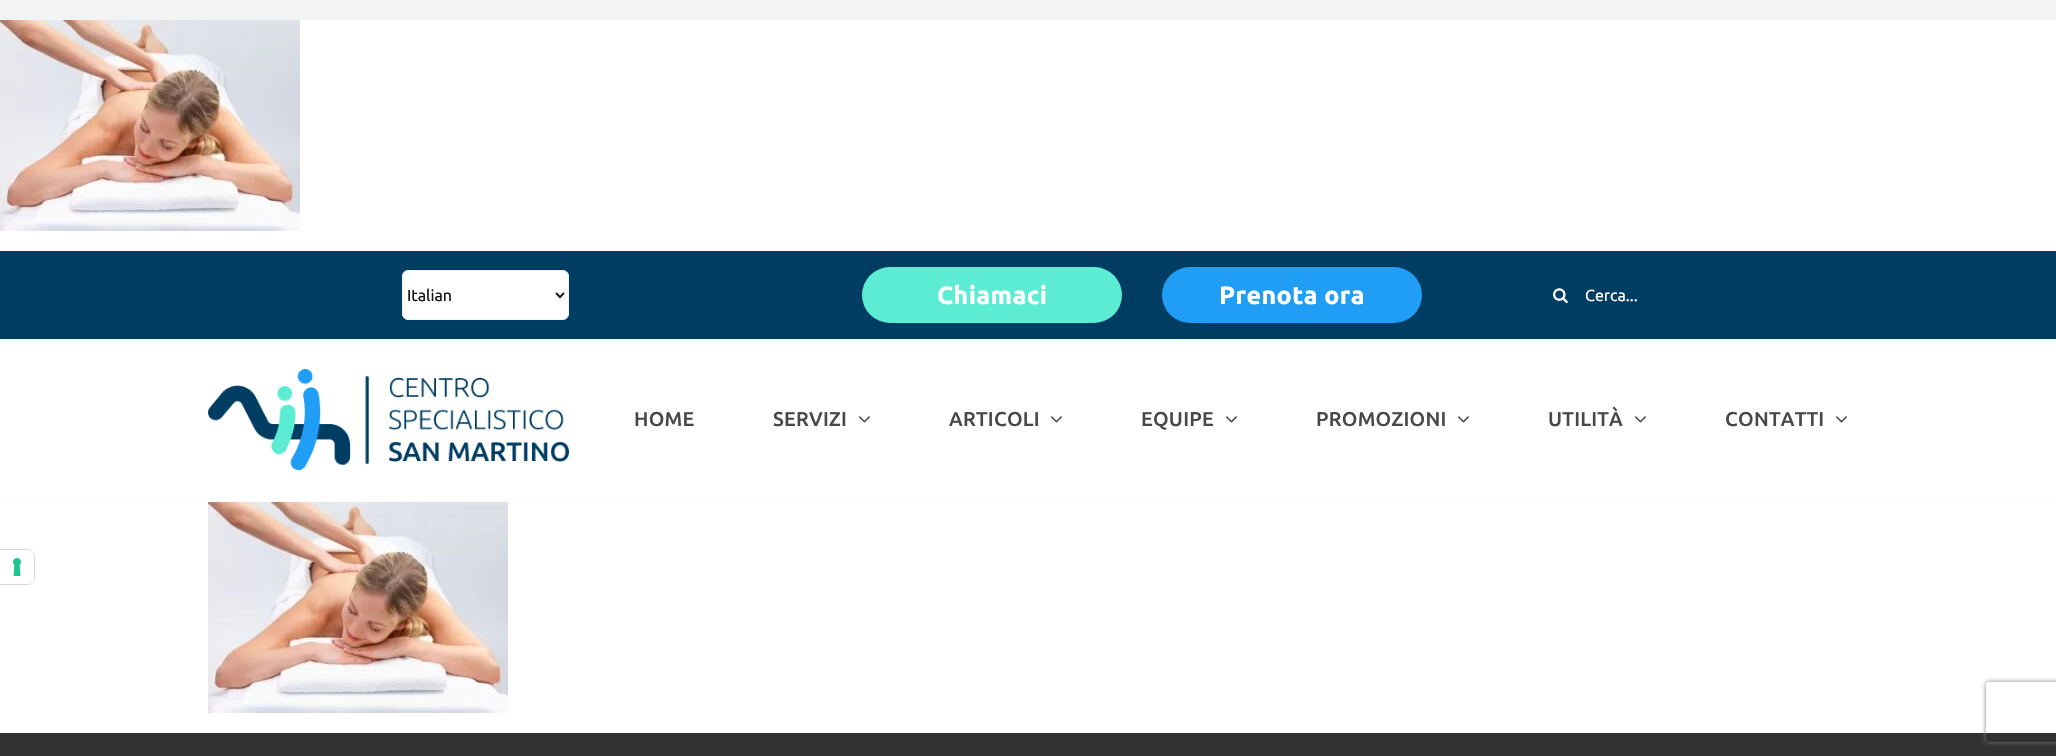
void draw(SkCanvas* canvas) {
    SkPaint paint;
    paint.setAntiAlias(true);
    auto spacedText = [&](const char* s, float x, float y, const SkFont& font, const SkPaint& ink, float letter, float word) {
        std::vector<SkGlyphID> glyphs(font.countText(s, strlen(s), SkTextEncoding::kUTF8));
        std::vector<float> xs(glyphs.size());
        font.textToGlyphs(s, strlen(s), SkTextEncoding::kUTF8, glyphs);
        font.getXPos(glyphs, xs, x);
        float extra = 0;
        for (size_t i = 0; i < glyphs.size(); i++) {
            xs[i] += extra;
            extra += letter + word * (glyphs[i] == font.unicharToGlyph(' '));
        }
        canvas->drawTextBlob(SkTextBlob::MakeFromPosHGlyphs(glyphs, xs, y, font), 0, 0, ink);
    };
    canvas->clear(0xFFF2F3F5);
    paint.setColor(0xFFFFFFFF);
    canvas->drawRect(SkRect::MakeXYWH(0, 20, 2056, 713), paint);
    canvas->drawImageRect(SkImages::DeferredFromEncodedData(SkData::MakeFromFileName("img1.png")), SkRect::MakeXYWH(0, 20, 300, 211), SkSamplingOptions());
    paint.setColor(0xFF003D62);
    canvas->drawRect(SkRect::MakeXYWH(0, 251, 2056, 88), paint);
    paint.setColor(0xFFFFFFFF);
    canvas->drawRoundRect(SkRect::MakeXYWH(402.5f, 270.5f, 166, 49), 5.5f, 5.5f, paint);
    paint.setStyle(SkPaint::kStroke_Style);
    paint.setStrokeWidth(1);
    paint.setColor(0xFFF2F3F5);
    canvas->drawRoundRect(SkRect::MakeXYWH(402.5f, 270.5f, 166, 49), 5.5f, 5.5f, paint);
    paint.setStrokeWidth(2);
    paint.setColor(0xFF141617);
    canvas->drawPath(SkPathBuilder().moveTo(556, 293).lineTo(560, 297).lineTo(564, 293).detach(), paint);
    SkFont font1(fontMgr->matchFamilyStyle("Ubuntu", SkFontStyle::Normal()), 16);
    font1.setSubpixel(true);
    paint.setStyle(SkPaint::kFill_Style);
    canvas->drawString("Italian", 407, 301, font1, paint);
    paint.setColor(0xFF5CECD3);
    canvas->drawRoundRect(SkRect::MakeXYWH(862, 267, 260, 56), 28, 28, paint);
    SkFont font2(fontMgr->matchFamilyStyle("Ubuntu", SkFontStyle::Bold()), 25);
    font2.setSubpixel(true);
    paint.setColor(0xFFFFFFFF);
    spacedText("Chiamaci", 937, 304, font2, paint, 0.4f, 0);
    paint.setColor(0xFF209DF5);
    canvas->drawRoundRect(SkRect::MakeXYWH(1162, 267, 260, 56), 28, 28, paint);
    paint.setColor(0xFFFFFFFF);
    spacedText("Prenota ora", 1219, 304, font2, paint, 0.4f, 0);
    canvas->drawImageRect(SkImages::DeferredFromEncodedData(SkData::MakeFromFileName("img2.png")), SkRect::MakeXYWH(1553, 288, 15, 16), SkSamplingOptions());
    canvas->drawString("Cerca...", 1585, 301, font1, paint);
    canvas->drawImageRect(SkImages::DeferredFromEncodedData(SkData::MakeFromFileName("img3.png")), SkRect::MakeXYWH(208, 369, 361, 102), SkSamplingOptions());
    SkFont font3(fontMgr->matchFamilyStyle("Ubuntu", SkFontStyle(500, SkFontStyle::kNormal_Width, SkFontStyle::kUpright_Slant)), 20);
    font3.setSubpixel(true);
    paint.setColor(0xFF484848);
    spacedText("HOME", 634, 426, font3, paint, 0.25f, 0);
    spacedText("SERVIZI", 773, 426, font3, paint, 0.25f, 0);
    canvas->drawImageRect(SkImages::DeferredFromEncodedData(SkData::MakeFromFileName("img4.png")), SkRect::MakeXYWH(858, 416, 12, 7), SkSamplingOptions());
    spacedText("ARTICOLI", 949, 426, font3, paint, 0.25f, 0);
    canvas->drawImageRect(SkImages::DeferredFromEncodedData(SkData::MakeFromFileName("img4.png")), SkRect::MakeXYWH(1050, 416, 12, 7), SkSamplingOptions());
    spacedText("EQUIPE", 1141, 426, font3, paint, 0.25f, 0);
    canvas->drawImageRect(SkImages::DeferredFromEncodedData(SkData::MakeFromFileName("img4.png")), SkRect::MakeXYWH(1225, 416, 12, 7), SkSamplingOptions());
    spacedText("PROMOZIONI", 1316, 426, font3, paint, 0.25f, 0);
    canvas->drawImageRect(SkImages::DeferredFromEncodedData(SkData::MakeFromFileName("img4.png")), SkRect::MakeXYWH(1457, 416, 12, 7), SkSamplingOptions());
    spacedText("UTILITÀ", 1548, 426, font3, paint, 0.25f, 0);
    canvas->drawImageRect(SkImages::DeferredFromEncodedData(SkData::MakeFromFileName("img4.png")), SkRect::MakeXYWH(1634, 416, 12, 7), SkSamplingOptions());
    spacedText("CONTATTI", 1725, 426, font3, paint, 0.25f, 0);
    canvas->drawImageRect(SkImages::DeferredFromEncodedData(SkData::MakeFromFileName("img4.png")), SkRect::MakeXYWH(1835, 416, 12, 7), SkSamplingOptions());
    paint.setColor(0xFFFCFCFC);
    canvas->drawRect(SkRect::MakeXYWH(0, 501, 2056, 1), paint);
    canvas->drawImageRect(SkImages::DeferredFromEncodedData(SkData::MakeFromFileName("img1.png")), SkRect::MakeXYWH(208, 502, 300, 211), SkSamplingOptions());
    paint.setColor(0xFF313131);
    canvas->drawRect(SkRect::MakeXYWH(0, 733, 2056, 23), paint);
    paint.setStyle(SkPaint::kStroke_Style);
    paint.setStrokeWidth(1);
    paint.setColor(0xFFD9D9D9);
    canvas->drawPath(SkPathBuilder().moveTo(-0.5f, 549.5f).lineTo(28, 549.5f).cubicTo(31.5f, 549.5f, 34.5f, 552.5f, 34.5f, 556).lineTo(34.5f, 578).cubicTo(34.5f, 581.5f, 31.5f, 584.5f, 28, 584.5f).lineTo(-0.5f, 584.5f).close().detach(), paint);
    paint.setStyle(SkPaint::kFill_Style);
    paint.setColor(0xFFFFFFFF);
    canvas->drawPath(SkPathBuilder().moveTo(0, 550).lineTo(28, 550).cubicTo(31.5f, 550, 34, 552.5f, 34, 556).lineTo(34, 578).cubicTo(34, 581.5f, 31.5f, 584, 28, 584).lineTo(0, 584).close().detach(), paint);
    canvas->drawImageRect(SkImages::DeferredFromEncodedData(SkData::MakeFromFileName("img5.png")), SkRect::MakeXYWH(13, 558, 8, 18), SkSamplingOptions());
    canvas->save();
    canvas->clipPath(SkPathBuilder(SkPathFillType::kEvenOdd).moveTo(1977, 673).lineTo(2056, 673).lineTo(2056, 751).lineTo(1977, 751).close().moveTo(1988, 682).lineTo(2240, 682).cubicTo(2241, 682, 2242, 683, 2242, 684).lineTo(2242, 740).cubicTo(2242, 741, 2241, 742, 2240, 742).lineTo(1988, 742).cubicTo(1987, 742, 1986, 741, 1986, 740).lineTo(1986, 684).cubicTo(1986, 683, 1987, 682, 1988, 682).close().detach(), true);
    paint.setColor(0xFF808080);
    paint.setMaskFilter(SkMaskFilter::MakeBlur(kNormal_SkBlurStyle, 2.5f));
    canvas->drawRoundRect(SkRect::MakeXYWH(1986, 682, 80, 60), 2, 2, paint);
    paint.setMaskFilter(nullptr);
    canvas->restore();
}
